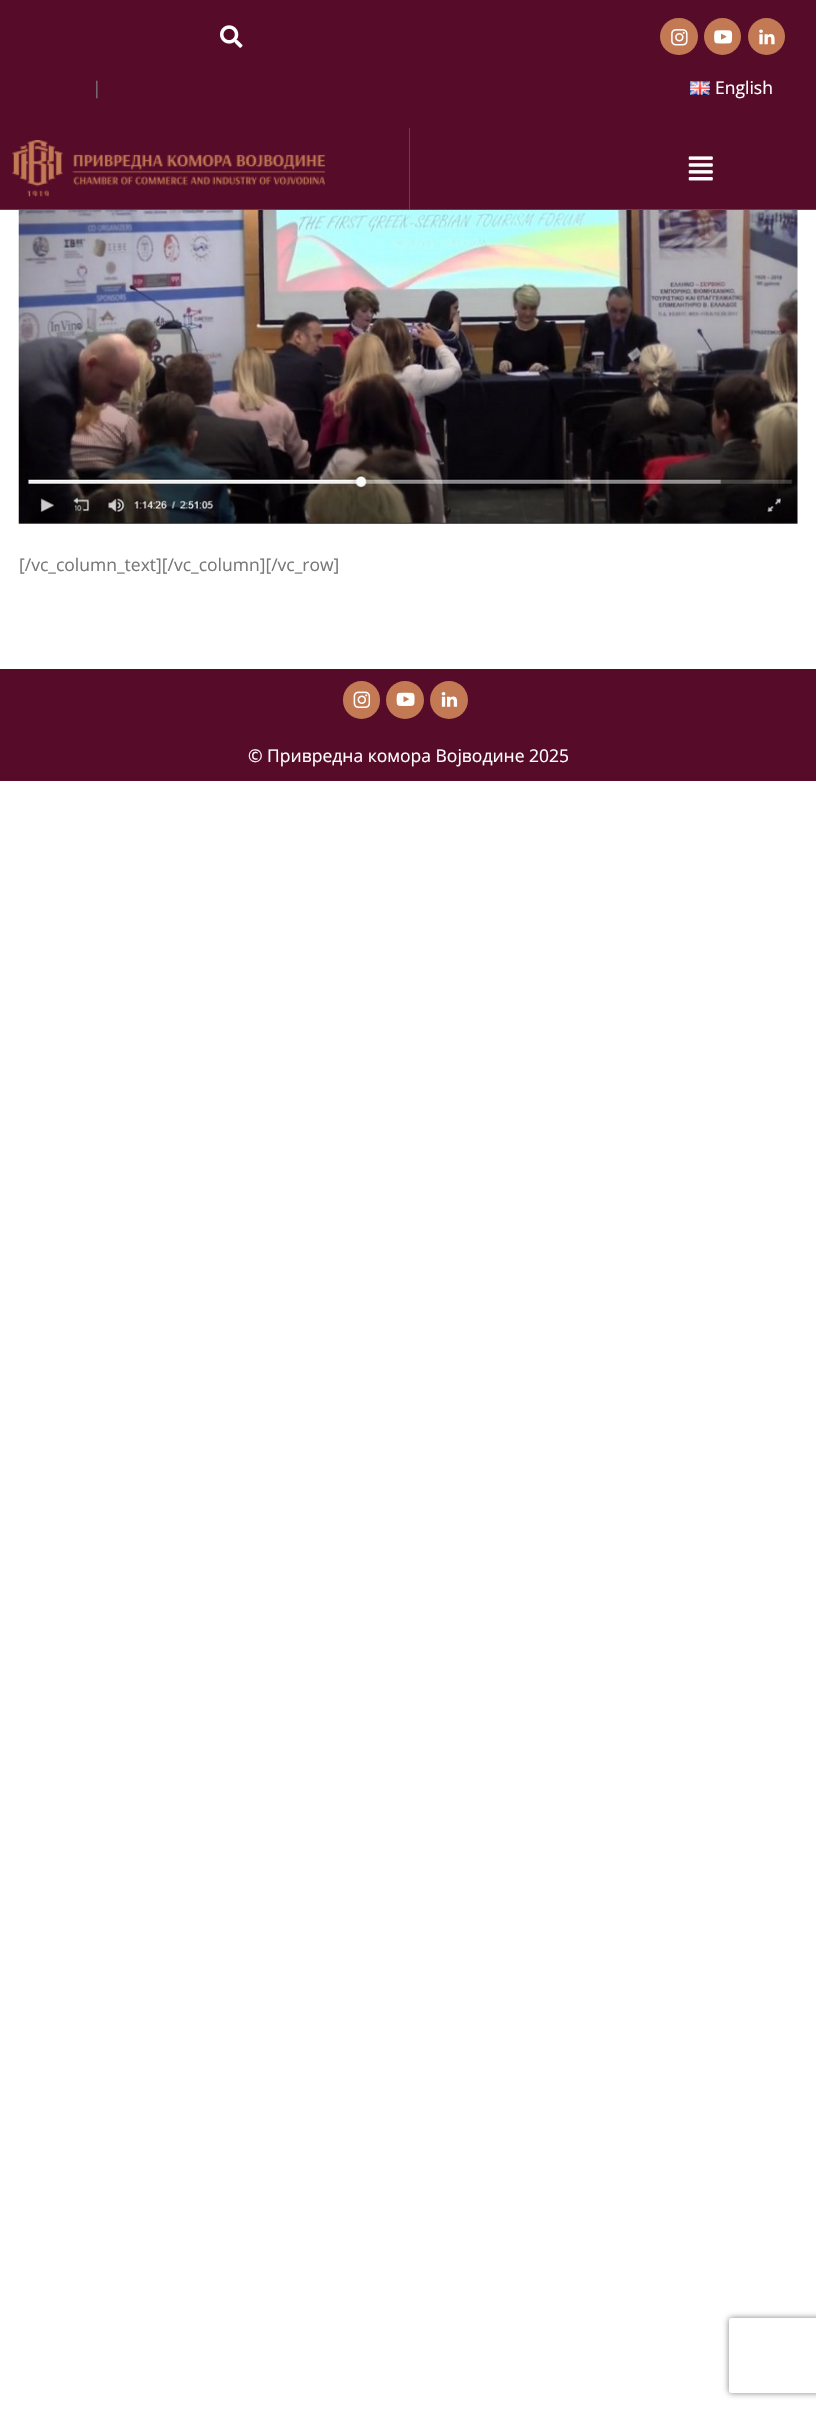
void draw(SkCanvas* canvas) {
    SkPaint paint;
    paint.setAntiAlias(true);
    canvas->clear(0xFFFFFFFF);
    paint.setColor(0xFF560C28);
    canvas->drawRect(SkRect::MakeXYWH(0, 0, 816, 209), paint);
    canvas->drawImageRect(SkImages::DeferredFromEncodedData(SkData::MakeFromFileName("img1.png")), SkRect::MakeXYWH(220, 25, 23, 23), SkSamplingOptions());
    paint.setColor(0xFFC37953);
    canvas->drawRoundRect(SkRect::MakeXYWH(660, 18, 38, 37), 18.5f, 18.5f, paint);
    canvas->drawImageRect(SkImages::DeferredFromEncodedData(SkData::MakeFromFileName("img2.png")), SkRect::MakeXYWH(671, 29, 17, 17), SkSamplingOptions());
    canvas->drawCircle(722.5f, 36.5f, 18.5f, paint);
    canvas->drawImageRect(SkImages::DeferredFromEncodedData(SkData::MakeFromFileName("img3.png")), SkRect::MakeXYWH(714, 30, 19, 14), SkSamplingOptions());
    canvas->drawCircle(766.5f, 36.5f, 18.5f, paint);
    canvas->drawImageRect(SkImages::DeferredFromEncodedData(SkData::MakeFromFileName("img4.png")), SkRect::MakeXYWH(759, 29, 16, 16), SkSamplingOptions());
    SkFont font1(fontMgr->matchFamilyStyle("Open Sans", SkFontStyle::Normal()), 17.5f);
    font1.setSubpixel(true);
    paint.setColor(0xFF777777);
    canvas->drawString("|", 92, 94, font1, paint);
    canvas->drawImageRect(SkImages::DeferredFromEncodedData(SkData::MakeFromFileName("img5.png")), SkRect::MakeXYWH(690, 81, 20, 14), SkSamplingOptions());
    paint.setColor(0xFFFFFFFF);
    canvas->drawString("English", 715, 94, font1, paint);
    paint.setColor(0xFF763A51);
    canvas->drawRect(SkRect::MakeXYWH(0, 209, 816, 1), paint);
    canvas->drawImageRect(SkImages::DeferredFromEncodedData(SkData::MakeFromFileName("img6.png")), SkRect::MakeXYWH(12, 140, 313, 57), SkSamplingOptions());
    canvas->drawRect(SkRect::MakeXYWH(409, 128, 1, 81), paint);
    canvas->drawImageRect(SkImages::DeferredFromEncodedData(SkData::MakeFromFileName("img7.png")), SkRect::MakeXYWH(688, 156, 25, 25), SkSamplingOptions());
    canvas->drawImageRect(SkImages::DeferredFromEncodedData(SkData::MakeFromFileName("img8.png")), SkRect::MakeXYWH(18, 210, 780, 314), SkSamplingOptions());
    paint.setColor(0xFF777777);
    canvas->drawString("[/vc_column_text][/vc_column][/vc_row]", 19, 571, font1, paint);
    paint.setColor(0xFF560C28);
    canvas->drawRect(SkRect::MakeXYWH(0, 669, 816, 112), paint);
    paint.setColor(0xFFC37953);
    canvas->drawRoundRect(SkRect::MakeXYWH(343, 681, 37, 38), 18.5f, 18.5f, paint);
    canvas->drawImageRect(SkImages::DeferredFromEncodedData(SkData::MakeFromFileName("img9.png")), SkRect::MakeXYWH(353, 691, 18, 17), SkSamplingOptions());
    canvas->drawCircle(405, 700, 19, paint);
    canvas->drawImageRect(SkImages::DeferredFromEncodedData(SkData::MakeFromFileName("img10.png")), SkRect::MakeXYWH(396, 692, 19, 14), SkSamplingOptions());
    canvas->drawCircle(449, 700, 19, paint);
    canvas->drawImageRect(SkImages::DeferredFromEncodedData(SkData::MakeFromFileName("img11.png")), SkRect::MakeXYWH(441, 692, 17, 15), SkSamplingOptions());
    paint.setColor(0xFFFFFFFF);
    canvas->drawString("© Привредна комора Војводине 2025", 248, 762, font1, paint);
    canvas->save();
    canvas->clipPath(SkPathBuilder(SkPathFillType::kEvenOdd).moveTo(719, 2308).lineTo(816, 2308).lineTo(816, 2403).lineTo(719, 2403).close().moveTo(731.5f, 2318).lineTo(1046.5f, 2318).cubicTo(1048, 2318, 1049, 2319, 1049, 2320.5f).lineTo(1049, 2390.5f).cubicTo(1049, 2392, 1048, 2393, 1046.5f, 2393).lineTo(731.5f, 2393).cubicTo(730, 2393, 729, 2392, 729, 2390.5f).lineTo(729, 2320.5f).cubicTo(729, 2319, 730, 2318, 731.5f, 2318).close().detach(), true);
    paint.setColor(0xFF808080);
    paint.setMaskFilter(SkMaskFilter::MakeBlur(kNormal_SkBlurStyle, 3));
    canvas->drawRoundRect(SkRect::MakeXYWH(729, 2318, 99, 75), 2.5f, 2.5f, paint);
    paint.setMaskFilter(nullptr);
    canvas->restore();
}
